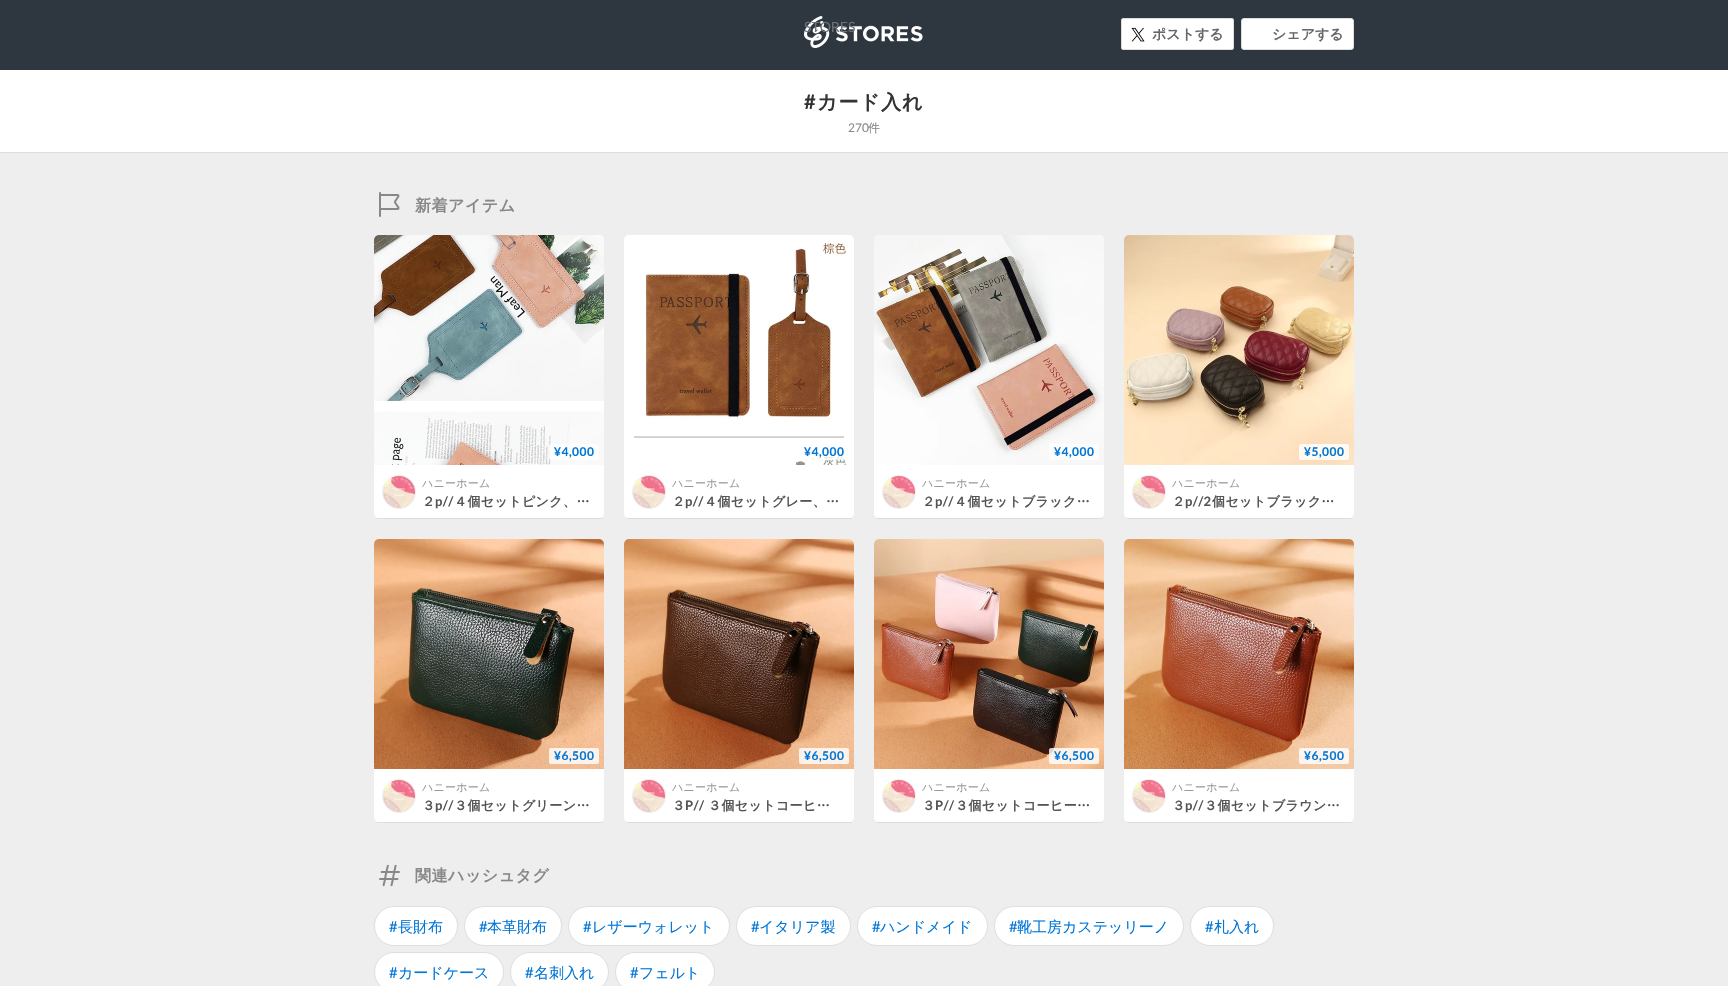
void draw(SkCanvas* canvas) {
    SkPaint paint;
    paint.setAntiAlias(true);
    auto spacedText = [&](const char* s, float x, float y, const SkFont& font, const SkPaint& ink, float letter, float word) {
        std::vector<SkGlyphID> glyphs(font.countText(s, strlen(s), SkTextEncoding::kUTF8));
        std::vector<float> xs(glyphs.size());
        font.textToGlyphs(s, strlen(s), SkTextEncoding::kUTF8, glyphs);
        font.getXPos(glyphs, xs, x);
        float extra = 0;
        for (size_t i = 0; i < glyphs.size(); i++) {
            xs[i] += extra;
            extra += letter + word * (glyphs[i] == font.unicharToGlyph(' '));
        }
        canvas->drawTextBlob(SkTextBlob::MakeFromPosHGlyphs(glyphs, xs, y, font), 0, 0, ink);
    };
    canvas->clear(0xFFEEEEEE);
    paint.setColor(0xFF2E3740);
    canvas->drawRect(SkRect::MakeXYWH(0, 0, 1728, 70), paint);
    canvas->drawImageRect(SkImages::DeferredFromEncodedData(SkData::MakeFromFileName("img1.png")), SkRect::MakeXYWH(804, 16, 119, 32), SkSamplingOptions());
    SkFont font1(fontMgr->matchFamilyStyle("Lato", SkFontStyle::Normal()), 14);
    font1.setSubpixel(true);
    paint.setColor(0xFF6C7279);
    canvas->drawString("STORES", 804, 32, font1, paint);
    paint.setColor(0xFFFFFFFF);
    canvas->drawRoundRect(SkRect::MakeXYWH(1121, 18, 113, 32), 3, 3, paint);
    canvas->drawImageRect(SkImages::DeferredFromEncodedData(SkData::MakeFromFileName("img2.png")), SkRect::MakeXYWH(1131, 27, 14, 15), SkSamplingOptions());
    paint.setStyle(SkPaint::kStroke_Style);
    paint.setStrokeWidth(1);
    paint.setColor(0xFFDDDDDD);
    canvas->drawRoundRect(SkRect::MakeXYWH(1121.5f, 18.5f, 112, 31), 2.5f, 2.5f, paint);
    SkFont font2(fontMgr->matchFamilyStyle("WenQuanYi Zen Hei", SkFontStyle::Bold()), 14);
    font2.setSubpixel(true);
    paint.setStyle(SkPaint::kFill_Style);
    paint.setColor(0xFF666666);
    canvas->drawString("ポストする", 1152, 39, font2, paint);
    paint.setColor(0xFFFFFFFF);
    canvas->drawRoundRect(SkRect::MakeXYWH(1241.5f, 18.5f, 112, 31), 2.5f, 2.5f, paint);
    paint.setStyle(SkPaint::kStroke_Style);
    paint.setColor(0xFFDDDDDD);
    canvas->drawRoundRect(SkRect::MakeXYWH(1241.5f, 18.5f, 112, 31), 2.5f, 2.5f, paint);
    paint.setStyle(SkPaint::kFill_Style);
    paint.setColor(0xFF666666);
    canvas->drawString("シェアする", 1272, 39, font2, paint);
    paint.setColor(0xFFFFFFFF);
    canvas->drawRect(SkRect::MakeXYWH(0, 70, 1728, 82), paint);
    paint.setColor(0xFFDDDDDD);
    canvas->drawRect(SkRect::MakeXYWH(0, 152, 1728, 1), paint);
    SkFont font3(fontMgr->matchFamilyStyle("Lato", SkFontStyle::Bold()), 20);
    font3.setSubpixel(true);
    paint.setColor(0xFF333333);
    spacedText("#", 804, 109, font3, paint, 1, 0);
    SkFont font4(fontMgr->matchFamilyStyle("WenQuanYi Zen Hei", SkFontStyle::Bold()), 20);
    font4.setSubpixel(true);
    spacedText("カード入れ", 817, 109, font4, paint, 1, 0);
    SkFont font5(fontMgr->matchFamilyStyle("Lato", SkFontStyle::Normal()), 12);
    font5.setSubpixel(true);
    paint.setColor(0xFF888888);
    canvas->drawString("270", 848, 132, font5, paint);
    SkFont font6(fontMgr->matchFamilyStyle("WenQuanYi Zen Hei", SkFontStyle(500, SkFontStyle::kNormal_Width, SkFontStyle::kUpright_Slant)), 12);
    font6.setSubpixel(true);
    canvas->drawString("件", 868, 132, font6, paint);
    canvas->drawImageRect(SkImages::DeferredFromEncodedData(SkData::MakeFromFileName("img3.png")), SkRect::MakeXYWH(379, 192, 21, 25), SkSamplingOptions());
    SkFont font7(fontMgr->matchFamilyStyle("WenQuanYi Zen Hei", SkFontStyle::Bold()), 16);
    font7.setSubpixel(true);
    spacedText("新着アイテム", 415, 211, font7, paint, 0.5f, 0);
    paint.setColor(0xFFFFFFFF);
    canvas->drawPath(SkPathBuilder().moveTo(379, 235).lineTo(599, 235).cubicTo(602, 235, 604, 237, 604, 240).lineTo(604, 514).cubicTo(604, 516, 602, 518, 599, 518).lineTo(379, 518).cubicTo(376, 518, 374, 516, 374, 514).lineTo(374, 240).cubicTo(374, 237, 376, 235, 379, 235).close().detach(), paint);
    paint.setColor(0xFFDDDDDD);
    canvas->drawRect(SkRect::MakeXYWH(377, 518, 225, 1), paint);
    canvas->drawImageRect(SkImages::DeferredFromEncodedData(SkData::MakeFromFileName("img4.png")), SkRect::MakeXYWH(374, 235, 230, 230), SkSamplingOptions());
    paint.setColor(0xCCFFFFFF);
    canvas->drawRoundRect(SkRect::MakeXYWH(549, 444, 50, 16), 2, 2, paint);
    SkFont font8(fontMgr->matchFamilyStyle("Lato", SkFontStyle::Bold()), 12);
    font8.setSubpixel(true);
    paint.setColor(0xFF0076D7);
    spacedText("¥4,000", 554, 456, font8, paint, 0.5f, 0);
    paint.setStyle(SkPaint::kStroke_Style);
    paint.setColor(0xFFEEEEEE);
    canvas->drawCircle(399, 492, 16.5f, paint);
    canvas->drawImageRect(SkImages::DeferredFromEncodedData(SkData::MakeFromFileName("img5.png")), SkRect::MakeXYWH(383, 476, 32, 32), SkSamplingOptions());
    SkFont font9(fontMgr->matchFamilyStyle("WenQuanYi Zen Hei", SkFontStyle(500, SkFontStyle::kNormal_Width, SkFontStyle::kUpright_Slant)), 11);
    font9.setSubpixel(true);
    paint.setStyle(SkPaint::kFill_Style);
    paint.setColor(0xFF999999);
    spacedText("ハニーホーム", 422, 487, font9, paint, 0.25f, 0);
    SkFont font10(fontMgr->matchFamilyStyle("WenQuanYi Zen Hei", SkFontStyle::Bold()), 13);
    font10.setSubpixel(true);
    paint.setColor(0xFF555555);
    spacedText("２", 422, 506, font10, paint, 0.4f, 0);
    SkFont font11(fontMgr->matchFamilyStyle("Lato", SkFontStyle::Bold()), 13);
    font11.setSubpixel(true);
    spacedText("p//", 435, 506, font11, paint, 0.4f, 0);
    spacedText("４個セットピンク、…", 454, 506, font10, paint, 0.4f, 0);
    paint.setColor(0xFFFFFFFF);
    canvas->drawPath(SkPathBuilder().moveTo(629, 235).lineTo(849, 235).cubicTo(852, 235, 854, 237, 854, 240).lineTo(854, 514).cubicTo(854, 516, 852, 518, 849, 518).lineTo(629, 518).cubicTo(626, 518, 624, 516, 624, 514).lineTo(624, 240).cubicTo(624, 237, 626, 235, 629, 235).close().detach(), paint);
    paint.setColor(0xFFDDDDDD);
    canvas->drawRect(SkRect::MakeXYWH(627, 518, 225, 1), paint);
    canvas->drawImageRect(SkImages::DeferredFromEncodedData(SkData::MakeFromFileName("img6.png")), SkRect::MakeXYWH(634, 243, 213, 222), SkSamplingOptions());
    paint.setColor(0xCCFFFFFF);
    canvas->drawRoundRect(SkRect::MakeXYWH(799, 444, 50, 16), 2, 2, paint);
    paint.setColor(0xFF0076D7);
    spacedText("¥4,000", 804, 456, font8, paint, 0.5f, 0);
    paint.setStyle(SkPaint::kStroke_Style);
    paint.setColor(0xFFEEEEEE);
    canvas->drawCircle(649, 492, 16.5f, paint);
    canvas->drawImageRect(SkImages::DeferredFromEncodedData(SkData::MakeFromFileName("img5.png")), SkRect::MakeXYWH(633, 476, 32, 32), SkSamplingOptions());
    paint.setStyle(SkPaint::kFill_Style);
    paint.setColor(0xFF999999);
    spacedText("ハニーホーム", 672, 487, font9, paint, 0.25f, 0);
    paint.setColor(0xFF555555);
    spacedText("２", 672, 506, font10, paint, 0.4f, 0);
    spacedText("p//", 685, 506, font11, paint, 0.4f, 0);
    spacedText("４個セットグレー、…", 704, 506, font10, paint, 0.4f, 0);
    paint.setColor(0xFFFFFFFF);
    canvas->drawPath(SkPathBuilder().moveTo(879, 235).lineTo(1099, 235).cubicTo(1102, 235, 1104, 237, 1104, 240).lineTo(1104, 514).cubicTo(1104, 516, 1102, 518, 1099, 518).lineTo(879, 518).cubicTo(876, 518, 874, 516, 874, 514).lineTo(874, 240).cubicTo(874, 237, 876, 235, 879, 235).close().detach(), paint);
    paint.setColor(0xFFDDDDDD);
    canvas->drawRect(SkRect::MakeXYWH(877, 518, 225, 1), paint);
    canvas->drawImageRect(SkImages::DeferredFromEncodedData(SkData::MakeFromFileName("img7.png")), SkRect::MakeXYWH(874, 235, 230, 230), SkSamplingOptions());
    paint.setColor(0xFFFEFEFE);
    canvas->drawRoundRect(SkRect::MakeXYWH(1049, 444, 50, 16), 2, 2, paint);
    paint.setColor(0xFF0076D7);
    spacedText("¥4,000", 1054, 456, font8, paint, 0.5f, 0);
    paint.setStyle(SkPaint::kStroke_Style);
    paint.setColor(0xFFEEEEEE);
    canvas->drawCircle(899, 492, 16.5f, paint);
    canvas->drawImageRect(SkImages::DeferredFromEncodedData(SkData::MakeFromFileName("img5.png")), SkRect::MakeXYWH(883, 476, 32, 32), SkSamplingOptions());
    paint.setStyle(SkPaint::kFill_Style);
    paint.setColor(0xFF999999);
    spacedText("ハニーホーム", 922, 487, font9, paint, 0.25f, 0);
    paint.setColor(0xFF555555);
    spacedText("２", 922, 506, font10, paint, 0.4f, 0);
    spacedText("p//", 935, 506, font11, paint, 0.4f, 0);
    spacedText("４個セットブラック…", 954, 506, font10, paint, 0.4f, 0);
    paint.setColor(0xFFFFFFFF);
    canvas->drawPath(SkPathBuilder().moveTo(1129, 235).lineTo(1349, 235).cubicTo(1352, 235, 1354, 237, 1354, 240).lineTo(1354, 514).cubicTo(1354, 516, 1352, 518, 1349, 518).lineTo(1129, 518).cubicTo(1126, 518, 1124, 516, 1124, 514).lineTo(1124, 240).cubicTo(1124, 237, 1126, 235, 1129, 235).close().detach(), paint);
    paint.setColor(0xFFDDDDDD);
    canvas->drawRect(SkRect::MakeXYWH(1127, 518, 225, 1), paint);
    canvas->drawImageRect(SkImages::DeferredFromEncodedData(SkData::MakeFromFileName("img8.png")), SkRect::MakeXYWH(1124, 235, 230, 230), SkSamplingOptions());
    paint.setColor(0xCCFFFFFF);
    canvas->drawRoundRect(SkRect::MakeXYWH(1299, 444, 50, 16), 2, 2, paint);
    paint.setColor(0xFF0076D7);
    spacedText("¥5,000", 1304, 456, font8, paint, 0.5f, 0);
    paint.setStyle(SkPaint::kStroke_Style);
    paint.setColor(0xFFEEEEEE);
    canvas->drawCircle(1149, 492, 16.5f, paint);
    canvas->drawImageRect(SkImages::DeferredFromEncodedData(SkData::MakeFromFileName("img9.png")), SkRect::MakeXYWH(1133, 476, 32, 32), SkSamplingOptions());
    paint.setStyle(SkPaint::kFill_Style);
    paint.setColor(0xFF999999);
    spacedText("ハニーホーム", 1172, 487, font9, paint, 0.25f, 0);
    paint.setColor(0xFF555555);
    spacedText("２", 1172, 506, font10, paint, 0.4f, 0);
    spacedText("p//2", 1185, 506, font11, paint, 0.4f, 0);
    spacedText("個セットブラック…", 1212, 506, font10, paint, 0.4f, 0);
    paint.setColor(0xFFFFFFFF);
    canvas->drawPath(SkPathBuilder().moveTo(379, 539).lineTo(599, 539).cubicTo(602, 539, 604, 541, 604, 544).lineTo(604, 818).cubicTo(604, 820, 602, 822, 599, 822).lineTo(379, 822).cubicTo(376, 822, 374, 820, 374, 818).lineTo(374, 544).cubicTo(374, 541, 376, 539, 379, 539).close().detach(), paint);
    paint.setColor(0xFFDDDDDD);
    canvas->drawRect(SkRect::MakeXYWH(377, 822, 225, 1), paint);
    canvas->drawImageRect(SkImages::DeferredFromEncodedData(SkData::MakeFromFileName("img10.png")), SkRect::MakeXYWH(374, 539, 230, 230), SkSamplingOptions());
    paint.setColor(0xCCFFFFFF);
    canvas->drawRoundRect(SkRect::MakeXYWH(549, 748, 50, 16), 2, 2, paint);
    paint.setColor(0xFF0076D7);
    spacedText("¥6,500", 554, 760, font8, paint, 0.5f, 0);
    paint.setStyle(SkPaint::kStroke_Style);
    paint.setColor(0xFFEEEEEE);
    canvas->drawCircle(399, 796, 16.5f, paint);
    canvas->drawImageRect(SkImages::DeferredFromEncodedData(SkData::MakeFromFileName("img5.png")), SkRect::MakeXYWH(383, 780, 32, 32), SkSamplingOptions());
    paint.setStyle(SkPaint::kFill_Style);
    paint.setColor(0xFF999999);
    spacedText("ハニーホーム", 422, 791, font9, paint, 0.25f, 0);
    paint.setColor(0xFF555555);
    spacedText("３", 422, 810, font10, paint, 0.4f, 0);
    spacedText("p//", 435, 810, font11, paint, 0.4f, 0);
    spacedText("３個セットグリーン…", 454, 810, font10, paint, 0.4f, 0);
    paint.setColor(0xFFFFFFFF);
    canvas->drawPath(SkPathBuilder().moveTo(629, 539).lineTo(849, 539).cubicTo(852, 539, 854, 541, 854, 544).lineTo(854, 818).cubicTo(854, 820, 852, 822, 849, 822).lineTo(629, 822).cubicTo(626, 822, 624, 820, 624, 818).lineTo(624, 544).cubicTo(624, 541, 626, 539, 629, 539).close().detach(), paint);
    paint.setColor(0xFFDDDDDD);
    canvas->drawRect(SkRect::MakeXYWH(627, 822, 225, 1), paint);
    canvas->drawImageRect(SkImages::DeferredFromEncodedData(SkData::MakeFromFileName("img11.png")), SkRect::MakeXYWH(624, 539, 230, 230), SkSamplingOptions());
    paint.setColor(0xCCFFFFFF);
    canvas->drawRoundRect(SkRect::MakeXYWH(799, 748, 50, 16), 2, 2, paint);
    paint.setColor(0xFF0076D7);
    spacedText("¥6,500", 804, 760, font8, paint, 0.5f, 0);
    paint.setStyle(SkPaint::kStroke_Style);
    paint.setColor(0xFFEEEEEE);
    canvas->drawCircle(649, 796, 16.5f, paint);
    canvas->drawImageRect(SkImages::DeferredFromEncodedData(SkData::MakeFromFileName("img5.png")), SkRect::MakeXYWH(633, 780, 32, 32), SkSamplingOptions());
    paint.setStyle(SkPaint::kFill_Style);
    paint.setColor(0xFF999999);
    spacedText("ハニーホーム", 672, 791, font9, paint, 0.25f, 0);
    paint.setColor(0xFF555555);
    spacedText("３", 672, 810, font10, paint, 0.4f, 0);
    spacedText("P//", 685, 810, font11, paint, 0.4f, 0);
    spacedText("３個セットコーヒ…", 708, 810, font10, paint, 0.4f, 0);
    paint.setColor(0xFFFFFFFF);
    canvas->drawPath(SkPathBuilder().moveTo(879, 539).lineTo(1099, 539).cubicTo(1102, 539, 1104, 541, 1104, 544).lineTo(1104, 818).cubicTo(1104, 820, 1102, 822, 1099, 822).lineTo(879, 822).cubicTo(876, 822, 874, 820, 874, 818).lineTo(874, 544).cubicTo(874, 541, 876, 539, 879, 539).close().detach(), paint);
    paint.setColor(0xFFDDDDDD);
    canvas->drawRect(SkRect::MakeXYWH(877, 822, 225, 1), paint);
    canvas->drawImageRect(SkImages::DeferredFromEncodedData(SkData::MakeFromFileName("img12.png")), SkRect::MakeXYWH(874, 539, 230, 230), SkSamplingOptions());
    paint.setColor(0xCCFFFFFF);
    canvas->drawRoundRect(SkRect::MakeXYWH(1049, 748, 50, 16), 2, 2, paint);
    paint.setColor(0xFF0076D7);
    spacedText("¥6,500", 1054, 760, font8, paint, 0.5f, 0);
    paint.setStyle(SkPaint::kStroke_Style);
    paint.setColor(0xFFEEEEEE);
    canvas->drawCircle(899, 796, 16.5f, paint);
    canvas->drawImageRect(SkImages::DeferredFromEncodedData(SkData::MakeFromFileName("img5.png")), SkRect::MakeXYWH(883, 780, 32, 32), SkSamplingOptions());
    paint.setStyle(SkPaint::kFill_Style);
    paint.setColor(0xFF999999);
    spacedText("ハニーホーム", 922, 791, font9, paint, 0.25f, 0);
    paint.setColor(0xFF555555);
    spacedText("３", 922, 810, font10, paint, 0.4f, 0);
    spacedText("P//", 935, 810, font11, paint, 0.4f, 0);
    spacedText("３個セットコーヒー…", 955, 810, font10, paint, 0.4f, -1);
    paint.setColor(0xFFFFFFFF);
    canvas->drawPath(SkPathBuilder().moveTo(1129, 539).lineTo(1349, 539).cubicTo(1352, 539, 1354, 541, 1354, 544).lineTo(1354, 818).cubicTo(1354, 820, 1352, 822, 1349, 822).lineTo(1129, 822).cubicTo(1126, 822, 1124, 820, 1124, 818).lineTo(1124, 544).cubicTo(1124, 541, 1126, 539, 1129, 539).close().detach(), paint);
    paint.setColor(0xFFDDDDDD);
    canvas->drawRect(SkRect::MakeXYWH(1127, 822, 225, 1), paint);
    canvas->drawImageRect(SkImages::DeferredFromEncodedData(SkData::MakeFromFileName("img13.png")), SkRect::MakeXYWH(1124, 539, 230, 230), SkSamplingOptions());
    paint.setColor(0xCCFFFFFF);
    canvas->drawRoundRect(SkRect::MakeXYWH(1299, 748, 50, 16), 2, 2, paint);
    paint.setColor(0xFF0076D7);
    spacedText("¥6,500", 1304, 760, font8, paint, 0.5f, 0);
    paint.setStyle(SkPaint::kStroke_Style);
    paint.setColor(0xFFEEEEEE);
    canvas->drawCircle(1149, 796, 16.5f, paint);
    canvas->drawImageRect(SkImages::DeferredFromEncodedData(SkData::MakeFromFileName("img9.png")), SkRect::MakeXYWH(1133, 780, 32, 32), SkSamplingOptions());
    paint.setStyle(SkPaint::kFill_Style);
    paint.setColor(0xFF999999);
    spacedText("ハニーホーム", 1172, 791, font9, paint, 0.25f, 0);
    paint.setColor(0xFF555555);
    spacedText("３", 1172, 810, font10, paint, 0.4f, 0);
    spacedText("p//", 1185, 810, font11, paint, 0.4f, 0);
    spacedText("３個セットブラウン…", 1204, 810, font10, paint, 0.4f, 0);
    canvas->drawImageRect(SkImages::DeferredFromEncodedData(SkData::MakeFromFileName("img14.png")), SkRect::MakeXYWH(379, 864, 21, 23), SkSamplingOptions());
    paint.setColor(0xFF888888);
    spacedText("関連ハッシュタグ", 415, 881, font7, paint, 0.5f, 0);
    paint.setColor(0xFFFFFFFF);
    canvas->drawRoundRect(SkRect::MakeXYWH(374.5f, 906.5f, 83, 39), 19.5f, 19.5f, paint);
    paint.setStyle(SkPaint::kStroke_Style);
    paint.setColor(0xFFDEDEDE);
    canvas->drawRoundRect(SkRect::MakeXYWH(374.5f, 906.5f, 83, 39), 19.5f, 19.5f, paint);
    SkFont font12(fontMgr->matchFamilyStyle("Lato", SkFontStyle::Normal()), 15);
    font12.setSubpixel(true);
    paint.setStyle(SkPaint::kFill_Style);
    paint.setColor(0xFF0076D7);
    canvas->drawString("#", 389, 932, font12, paint);
    SkFont font13(fontMgr->matchFamilyStyle("WenQuanYi Zen Hei", SkFontStyle(500, SkFontStyle::kNormal_Width, SkFontStyle::kUpright_Slant)), 15);
    font13.setSubpixel(true);
    canvas->drawString("長財布", 398, 932, font13, paint);
    paint.setColor(0xFFFFFFFF);
    canvas->drawRoundRect(SkRect::MakeXYWH(464.5f, 906.5f, 97, 39), 19.5f, 19.5f, paint);
    paint.setStyle(SkPaint::kStroke_Style);
    paint.setColor(0xFFDEDEDE);
    canvas->drawRoundRect(SkRect::MakeXYWH(464.5f, 906.5f, 97, 39), 19.5f, 19.5f, paint);
    paint.setStyle(SkPaint::kFill_Style);
    paint.setColor(0xFF0076D7);
    canvas->drawString("#", 479, 932, font12, paint);
    canvas->drawString("本革財布", 487, 932, font13, paint);
    paint.setColor(0xFFFFFFFF);
    canvas->drawRoundRect(SkRect::MakeXYWH(568.5f, 906.5f, 161, 39), 19.5f, 19.5f, paint);
    paint.setStyle(SkPaint::kStroke_Style);
    paint.setColor(0xFFDEDEDE);
    canvas->drawRoundRect(SkRect::MakeXYWH(568.5f, 906.5f, 161, 39), 19.5f, 19.5f, paint);
    paint.setStyle(SkPaint::kFill_Style);
    paint.setColor(0xFF0076D7);
    canvas->drawString("#", 583, 932, font12, paint);
    canvas->drawString("レザーウォレット", 592, 932, font13, paint);
    paint.setColor(0xFFFFFFFF);
    canvas->drawRoundRect(SkRect::MakeXYWH(736.5f, 906.5f, 114, 39), 19.5f, 19.5f, paint);
    paint.setStyle(SkPaint::kStroke_Style);
    paint.setColor(0xFFDEDEDE);
    canvas->drawRoundRect(SkRect::MakeXYWH(736.5f, 906.5f, 114, 39), 19.5f, 19.5f, paint);
    paint.setStyle(SkPaint::kFill_Style);
    paint.setColor(0xFF0076D7);
    canvas->drawString("#", 751, 932, font12, paint);
    canvas->drawString("イタリア製", 759, 932, font13, paint);
    paint.setColor(0xFFFFFFFF);
    canvas->drawRoundRect(SkRect::MakeXYWH(857.5f, 906.5f, 130, 39), 19.5f, 19.5f, paint);
    paint.setStyle(SkPaint::kStroke_Style);
    paint.setColor(0xFFDEDEDE);
    canvas->drawRoundRect(SkRect::MakeXYWH(857.5f, 906.5f, 130, 39), 19.5f, 19.5f, paint);
    paint.setStyle(SkPaint::kFill_Style);
    paint.setColor(0xFF0076D7);
    canvas->drawString("#", 872, 932, font12, paint);
    canvas->drawString("ハンドメイド", 880, 932, font13, paint);
    paint.setColor(0xFFFFFFFF);
    canvas->drawRoundRect(SkRect::MakeXYWH(994.5f, 906.5f, 189, 39), 19.5f, 19.5f, paint);
    paint.setStyle(SkPaint::kStroke_Style);
    paint.setColor(0xFFDEDEDE);
    canvas->drawRoundRect(SkRect::MakeXYWH(994.5f, 906.5f, 189, 39), 19.5f, 19.5f, paint);
    paint.setStyle(SkPaint::kFill_Style);
    paint.setColor(0xFF0076D7);
    canvas->drawString("#", 1009, 932, font12, paint);
    canvas->drawString("靴工房カステッリーノ", 1017, 932, font13, paint);
    paint.setColor(0xFFFFFFFF);
    canvas->drawRoundRect(SkRect::MakeXYWH(1190.5f, 906.5f, 83, 39), 19.5f, 19.5f, paint);
    paint.setStyle(SkPaint::kStroke_Style);
    paint.setColor(0xFFDEDEDE);
    canvas->drawRoundRect(SkRect::MakeXYWH(1190.5f, 906.5f, 83, 39), 19.5f, 19.5f, paint);
    paint.setStyle(SkPaint::kFill_Style);
    paint.setColor(0xFF0076D7);
    canvas->drawString("#", 1205, 932, font12, paint);
    canvas->drawString("札入れ", 1214, 932, font13, paint);
    paint.setColor(0xFFFFFFFF);
    canvas->drawRoundRect(SkRect::MakeXYWH(374.5f, 952.5f, 129, 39), 19.5f, 19.5f, paint);
    paint.setStyle(SkPaint::kStroke_Style);
    paint.setColor(0xFFDEDEDE);
    canvas->drawRoundRect(SkRect::MakeXYWH(374.5f, 952.5f, 129, 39), 19.5f, 19.5f, paint);
    paint.setStyle(SkPaint::kFill_Style);
    paint.setColor(0xFF0076D7);
    canvas->drawString("#", 389, 978, font12, paint);
    canvas->drawString("カードケース", 398, 978, font13, paint);
    paint.setColor(0xFFFFFFFF);
    canvas->drawRoundRect(SkRect::MakeXYWH(510.5f, 952.5f, 98, 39), 19.5f, 19.5f, paint);
    paint.setStyle(SkPaint::kStroke_Style);
    paint.setColor(0xFFDEDEDE);
    canvas->drawRoundRect(SkRect::MakeXYWH(510.5f, 952.5f, 98, 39), 19.5f, 19.5f, paint);
    paint.setStyle(SkPaint::kFill_Style);
    paint.setColor(0xFF0076D7);
    canvas->drawString("#", 525, 978, font12, paint);
    canvas->drawString("名刺入れ", 534, 978, font13, paint);
    paint.setColor(0xFFFFFFFF);
    canvas->drawRoundRect(SkRect::MakeXYWH(615.5f, 952.5f, 99, 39), 19.5f, 19.5f, paint);
    paint.setStyle(SkPaint::kStroke_Style);
    paint.setColor(0xFFDEDEDE);
    canvas->drawRoundRect(SkRect::MakeXYWH(615.5f, 952.5f, 99, 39), 19.5f, 19.5f, paint);
    paint.setStyle(SkPaint::kFill_Style);
    paint.setColor(0xFF0076D7);
    canvas->drawString("#", 630, 978, font12, paint);
    canvas->drawString("フェルト", 639, 978, font13, paint);
}
